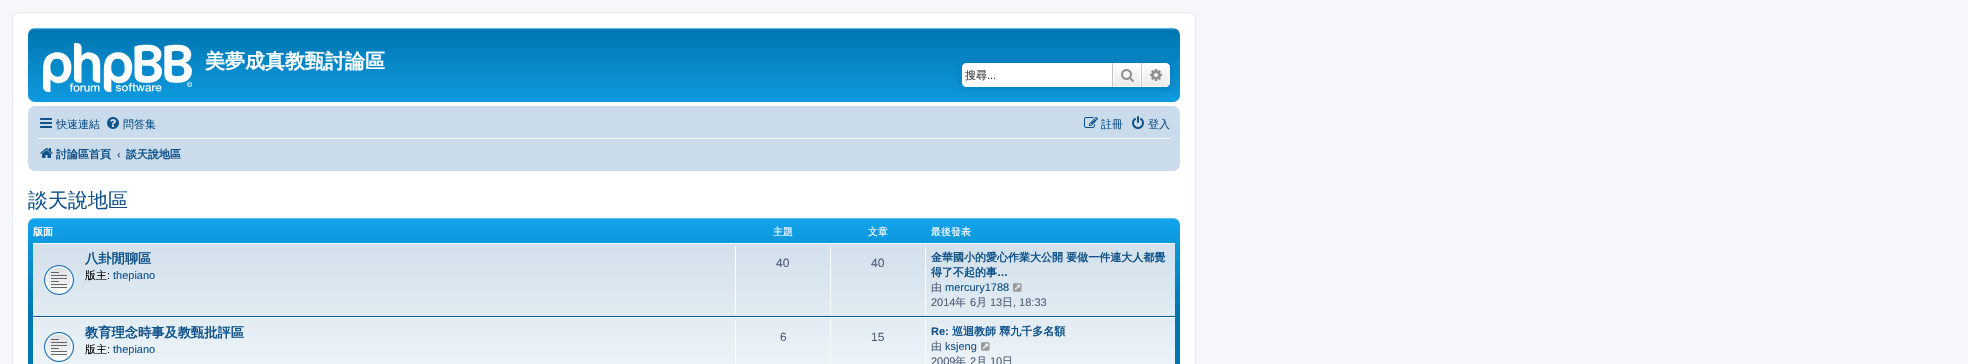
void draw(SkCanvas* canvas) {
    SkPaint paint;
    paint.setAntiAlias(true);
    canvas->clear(0xFFF5F7FA);
    paint.setColor(0xFFFFFFFF);
    canvas->drawRoundRect(SkRect::MakeXYWH(12.5f, 12.5f, 1183, 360), 7.5f, 7.5f, paint);
    paint.setStyle(SkPaint::kStroke_Style);
    paint.setStrokeWidth(1);
    paint.setColor(0xFFE6E9ED);
    canvas->drawRoundRect(SkRect::MakeXYWH(12.5f, 12.5f, 1183, 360), 7.5f, 7.5f, paint);
    paint.setStyle(SkPaint::kFill_Style);
    {
        const SkColor colors[] = {0xFF6ACEFF, 0xFF0076B1, 0xFF12A3EB};
        const float stops[] = {0, 0.02f, 1};
        const SkPoint ends[] = {{604, 28}, {604, 120}};
        paint.setShader(SkGradientShader::MakeLinear(ends, colors, stops, 3, SkTileMode::kClamp));
        paint.setAlpha(255);
    }
    canvas->drawRoundRect(SkRect::MakeXYWH(28, 28, 1152, 74), 7, 7, paint);
    canvas->drawImageRect(SkImages::DeferredFromEncodedData(SkData::MakeFromFileName("img1.png")), SkRect::MakeXYWH(43, 43, 149, 49), SkSamplingOptions());
    SkFont font1(fontMgr->matchFamilyStyle("WenQuanYi Zen Hei", SkFontStyle::Bold()), 20);
    font1.setSubpixel(true);
    paint.setShader(nullptr);
    paint.setColor(0xFFFFFFFF);
    canvas->drawString("美夢成真教甄討論區", 205, 68, font1, paint);
    paint.setColor(0xFF0075B0);
    paint.setMaskFilter(SkMaskFilter::MakeBlur(kNormal_SkBlurStyle, 5));
    canvas->drawRoundRect(SkRect::MakeXYWH(962, 63, 208, 24), 4, 4, paint);
    paint.setMaskFilter(nullptr);
    paint.setColor(0xFFFFFFFF);
    canvas->drawPath(SkPathBuilder().moveTo(966, 63).lineTo(1112, 63).lineTo(1112, 87).lineTo(966, 87).cubicTo(964, 87, 962, 85, 962, 83).lineTo(962, 67).cubicTo(962, 65, 964, 63, 966, 63).close().detach(), paint);
    SkFont font2(fontMgr->matchFamilyStyle("WenQuanYi Zen Hei", SkFontStyle(500, SkFontStyle::kNormal_Width, SkFontStyle::kUpright_Slant)), 11);
    font2.setSubpixel(true);
    paint.setColor(0xFF333333);
    canvas->drawString("搜尋", 965, 79, font2, paint);
    SkFont font3(fontMgr->matchFamilyStyle("Liberation Sans", SkFontStyle::Normal()), 11);
    font3.setSubpixel(true);
    canvas->drawString("...", 987, 79, font3, paint);
    {
        const SkColor colors[] = {0xFFFFFFFF, 0xFFE9E9E9};
        const float stops[] = {0, 1};
        const SkPoint ends[] = {{1127, 63}, {1127, 87}};
        paint.setShader(SkGradientShader::MakeLinear(ends, colors, stops, 2, SkTileMode::kClamp));
        paint.setAlpha(255);
    }
    canvas->drawRect(SkRect::MakeXYWH(1114, 64, 26, 22), paint);
    paint.setStyle(SkPaint::kStroke_Style);
    paint.setShader(nullptr);
    paint.setColor(0xFFFFFFFF);
    canvas->drawRect(SkRect::MakeXYWH(1113.5f, 63.5f, 27, 23), paint);
    paint.setStyle(SkPaint::kFill_Style);
    paint.setColor(0xFFC7C3BF);
    canvas->drawRect(SkRect::MakeXYWH(1141, 63, 1, 24), paint);
    canvas->drawRect(SkRect::MakeXYWH(1112, 63, 1, 24), paint);
    canvas->drawImageRect(SkImages::DeferredFromEncodedData(SkData::MakeFromFileName("img2.png")), SkRect::MakeXYWH(1121, 69, 13, 13), SkSamplingOptions());
    {
        const SkColor colors[] = {0xFFFFFFFF, 0xFFE9E9E9};
        const float stops[] = {0, 1};
        const SkPoint ends[] = {{1156, 63}, {1156, 87}};
        paint.setShader(SkGradientShader::MakeLinear(ends, colors, stops, 2, SkTileMode::kClamp));
        paint.setAlpha(255);
    }
    canvas->drawPath(SkPathBuilder().moveTo(1142.5f, 63.5f).lineTo(1166, 63.5f).cubicTo(1168, 63.5f, 1169.5f, 65, 1169.5f, 67).lineTo(1169.5f, 83).cubicTo(1169.5f, 85, 1168, 86.5f, 1166, 86.5f).lineTo(1142.5f, 86.5f).close().detach(), paint);
    paint.setStyle(SkPaint::kStroke_Style);
    paint.setShader(nullptr);
    paint.setColor(0xFFFFFFFF);
    canvas->drawPath(SkPathBuilder().moveTo(1142.5f, 63.5f).lineTo(1166, 63.5f).cubicTo(1168, 63.5f, 1169.5f, 65, 1169.5f, 67).lineTo(1169.5f, 83).cubicTo(1169.5f, 85, 1168, 86.5f, 1166, 86.5f).lineTo(1142.5f, 86.5f).close().detach(), paint);
    canvas->drawImageRect(SkImages::DeferredFromEncodedData(SkData::MakeFromFileName("img3.png")), SkRect::MakeXYWH(1150, 69, 12, 12), SkSamplingOptions());
    paint.setStyle(SkPaint::kFill_Style);
    paint.setColor(0xFFCADCEB);
    canvas->drawRoundRect(SkRect::MakeXYWH(28, 106, 1152, 65), 7, 7, paint);
    canvas->drawImageRect(SkImages::DeferredFromEncodedData(SkData::MakeFromFileName("img4.png")), SkRect::MakeXYWH(40, 118, 12, 10), SkSamplingOptions());
    paint.setColor(0xFF105289);
    canvas->drawString("快速連結", 56, 128, font2, paint);
    canvas->drawImageRect(SkImages::DeferredFromEncodedData(SkData::MakeFromFileName("img5.png")), SkRect::MakeXYWH(107, 117, 12, 12), SkSamplingOptions());
    canvas->drawString("問答集", 123, 128, font2, paint);
    canvas->drawImageRect(SkImages::DeferredFromEncodedData(SkData::MakeFromFileName("img6.png")), SkRect::MakeXYWH(1084, 117, 14, 11), SkSamplingOptions());
    canvas->drawString("註冊", 1101, 128, font2, paint);
    canvas->drawImageRect(SkImages::DeferredFromEncodedData(SkData::MakeFromFileName("img7.png")), SkRect::MakeXYWH(1132, 116, 12, 13), SkSamplingOptions());
    canvas->drawString("登入", 1148, 128, font2, paint);
    paint.setColor(0xFFFFFFFF);
    canvas->drawRect(SkRect::MakeXYWH(38, 138, 1132, 1), paint);
    canvas->drawImageRect(SkImages::DeferredFromEncodedData(SkData::MakeFromFileName("img8.png")), SkRect::MakeXYWH(40, 148, 13, 10), SkSamplingOptions());
    SkFont font4(fontMgr->matchFamilyStyle("WenQuanYi Zen Hei", SkFontStyle::Bold()), 11);
    font4.setSubpixel(true);
    paint.setColor(0xFF105289);
    canvas->drawString("討論區首頁", 56, 158, font4, paint);
    SkFont font5(fontMgr->matchFamilyStyle("Liberation Sans", SkFontStyle::Bold()), 11);
    font5.setSubpixel(true);
    paint.setColor(0xFF536482);
    canvas->drawString("‹", 117, 158, font5, paint);
    paint.setColor(0xFF105289);
    canvas->drawString("談天說地區", 126, 158, font4, paint);
    SkFont font6(fontMgr->matchFamilyStyle("WenQuanYi Zen Hei", SkFontStyle(500, SkFontStyle::kNormal_Width, SkFontStyle::kUpright_Slant)), 20);
    font6.setSubpixel(true);
    canvas->drawString("談天說地區", 28, 207, font6, paint);
    {
        const SkColor colors[] = {0xFF6ACEFF, 0xFF12A3EB, 0xFF0076B1, 0xFF0076B1};
        const float stops[] = {0, 0.01f, 0.56f, 1};
        const SkPoint ends[] = {{604, 218}, {604, 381}};
        paint.setShader(SkGradientShader::MakeLinear(ends, colors, stops, 4, SkTileMode::kClamp));
        paint.setAlpha(255);
    }
    canvas->drawRoundRect(SkRect::MakeXYWH(28, 218, 1152, 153), 7, 7, paint);
    SkFont font7(fontMgr->matchFamilyStyle("WenQuanYi Zen Hei", SkFontStyle::Bold()), 10);
    font7.setSubpixel(true);
    paint.setShader(nullptr);
    paint.setColor(0xFFFFFFFF);
    canvas->drawString("版面", 33, 235, font7, paint);
    SkFont font8(fontMgr->matchFamilyStyle("WenQuanYi Zen Hei", SkFontStyle(500, SkFontStyle::kNormal_Width, SkFontStyle::kUpright_Slant)), 10);
    font8.setSubpixel(true);
    canvas->drawString("主題", 773, 235, font8, paint);
    canvas->drawString("文章", 868, 235, font8, paint);
    canvas->drawString("最後發表", 931, 235, font8, paint);
    {
        const SkColor colors[] = {0xFFD2E0EB, 0xFFEEF5F9};
        const float stops[] = {0, 1};
        const SkPoint ends[] = {{604, 243}, {604, 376}};
        paint.setShader(SkGradientShader::MakeLinear(ends, colors, stops, 2, SkTileMode::kClamp));
        paint.setAlpha(255);
    }
    canvas->drawRect(SkRect::MakeXYWH(33, 244, 1142, 120), paint);
    paint.setShader(nullptr);
    paint.setColor(0xFFFFFFFF);
    canvas->drawRect(SkRect::MakeXYWH(33, 243, 1142, 1), paint);
    paint.setColor(0xFF00608F);
    canvas->drawRect(SkRect::MakeXYWH(33, 316, 1142, 1), paint);
    canvas->drawImageRect(SkImages::DeferredFromEncodedData(SkData::MakeFromFileName("img9.png")), SkRect::MakeXYWH(44, 265, 30, 30), SkSamplingOptions());
    SkFont font9(fontMgr->matchFamilyStyle("WenQuanYi Zen Hei", SkFontStyle::Bold()), 13.25f);
    font9.setSubpixel(true);
    paint.setColor(0xFF105289);
    canvas->drawString("八卦閒聊區", 85, 263, font9, paint);
    paint.setColor(0xFF000000);
    canvas->drawString("版主", 85, 279, font2, paint);
    canvas->drawString(":", 107, 279, font3, paint);
    paint.setColor(0xFF105289);
    canvas->drawString("thepiano", 113, 279, font3, paint);
    paint.setColor(0xFFFFFFFF);
    canvas->drawRect(SkRect::MakeXYWH(735, 246, 1, 68), paint);
    SkFont font10(fontMgr->matchFamilyStyle("Liberation Sans", SkFontStyle::Normal()), 12);
    font10.setSubpixel(true);
    paint.setColor(0xFF4C5D77);
    canvas->drawString("40", 776, 267, font10, paint);
    paint.setColor(0xFFFFFFFF);
    canvas->drawRect(SkRect::MakeXYWH(830, 246, 1, 68), paint);
    paint.setColor(0xFF4C5D77);
    canvas->drawString("40", 871, 267, font10, paint);
    paint.setColor(0xFFFFFFFF);
    canvas->drawRect(SkRect::MakeXYWH(925, 246, 1, 68), paint);
    paint.setColor(0xFF105289);
    canvas->drawString("金華國小的愛心作業大公開 要做一件連大人都覺", 931, 261, font4, paint);
    canvas->drawString("得了不起的事", 931, 276, font4, paint);
    canvas->drawString("…", 997, 276, font5, paint);
    paint.setColor(0xFF4C5D77);
    canvas->drawString("由", 931, 291, font2, paint);
    paint.setColor(0xFF105289);
    canvas->drawString("mercury1788", 945, 291, font3, paint);
    canvas->drawImageRect(SkImages::DeferredFromEncodedData(SkData::MakeFromFileName("img10.png")), SkRect::MakeXYWH(1013, 283, 9, 9), SkSamplingOptions());
    paint.setColor(0xFF4C5D77);
    canvas->drawString("2014", 931, 306, font3, paint);
    canvas->drawString("年", 955, 306, font2, paint);
    canvas->drawString("6", 970, 306, font3, paint);
    canvas->drawString("月", 976, 306, font2, paint);
    canvas->drawString("13", 990, 306, font3, paint);
    canvas->drawString("日", 1002, 306, font2, paint);
    canvas->drawString(", 18:33", 1013, 306, font3, paint);
    paint.setColor(0xFFFFFFFF);
    canvas->drawRect(SkRect::MakeXYWH(33, 317, 1142, 1), paint);
    canvas->drawImageRect(SkImages::DeferredFromEncodedData(SkData::MakeFromFileName("img11.png")), SkRect::MakeXYWH(44, 332, 30, 30), SkSamplingOptions());
    paint.setColor(0xFF105289);
    canvas->drawString("教育理念時事及教甄批評區", 85, 337, font9, paint);
    paint.setColor(0xFF000000);
    canvas->drawString("版主", 85, 353, font2, paint);
    canvas->drawString(":", 107, 353, font3, paint);
    paint.setColor(0xFF105289);
    canvas->drawString("thepiano", 113, 353, font3, paint);
    paint.setColor(0xFFFFFFFF);
    canvas->drawRect(SkRect::MakeXYWH(735, 320, 1, 44), paint);
    paint.setColor(0xFF4C5D77);
    canvas->drawString("6", 780, 341, font10, paint);
    paint.setColor(0xFFFFFFFF);
    canvas->drawRect(SkRect::MakeXYWH(830, 320, 1, 44), paint);
    paint.setColor(0xFF4C5D77);
    canvas->drawString("15", 871, 341, font10, paint);
    paint.setColor(0xFFFFFFFF);
    canvas->drawRect(SkRect::MakeXYWH(925, 320, 1, 44), paint);
    paint.setColor(0xFF105289);
    canvas->drawString("Re:", 931, 335, font5, paint);
    canvas->drawString("巡迴教師 釋九千多名額", 952, 335, font4, paint);
    paint.setColor(0xFF4C5D77);
    canvas->drawString("由", 931, 350, font2, paint);
    paint.setColor(0xFF105289);
    canvas->drawString("ksjeng", 945, 350, font3, paint);
    canvas->drawImageRect(SkImages::DeferredFromEncodedData(SkData::MakeFromFileName("img12.png")), SkRect::MakeXYWH(981, 342, 9, 9), SkSamplingOptions());
    paint.setColor(0xFF4C5D77);
    canvas->drawString("2009", 931, 365, font3, paint);
    canvas->drawString("年", 955, 365, font2, paint);
    canvas->drawString("2", 970, 365, font3, paint);
    canvas->drawString("月", 976, 365, font2, paint);
    canvas->drawString("10", 990, 365, font3, paint);
    canvas->drawString("日", 1002, 365, font2, paint);
}
